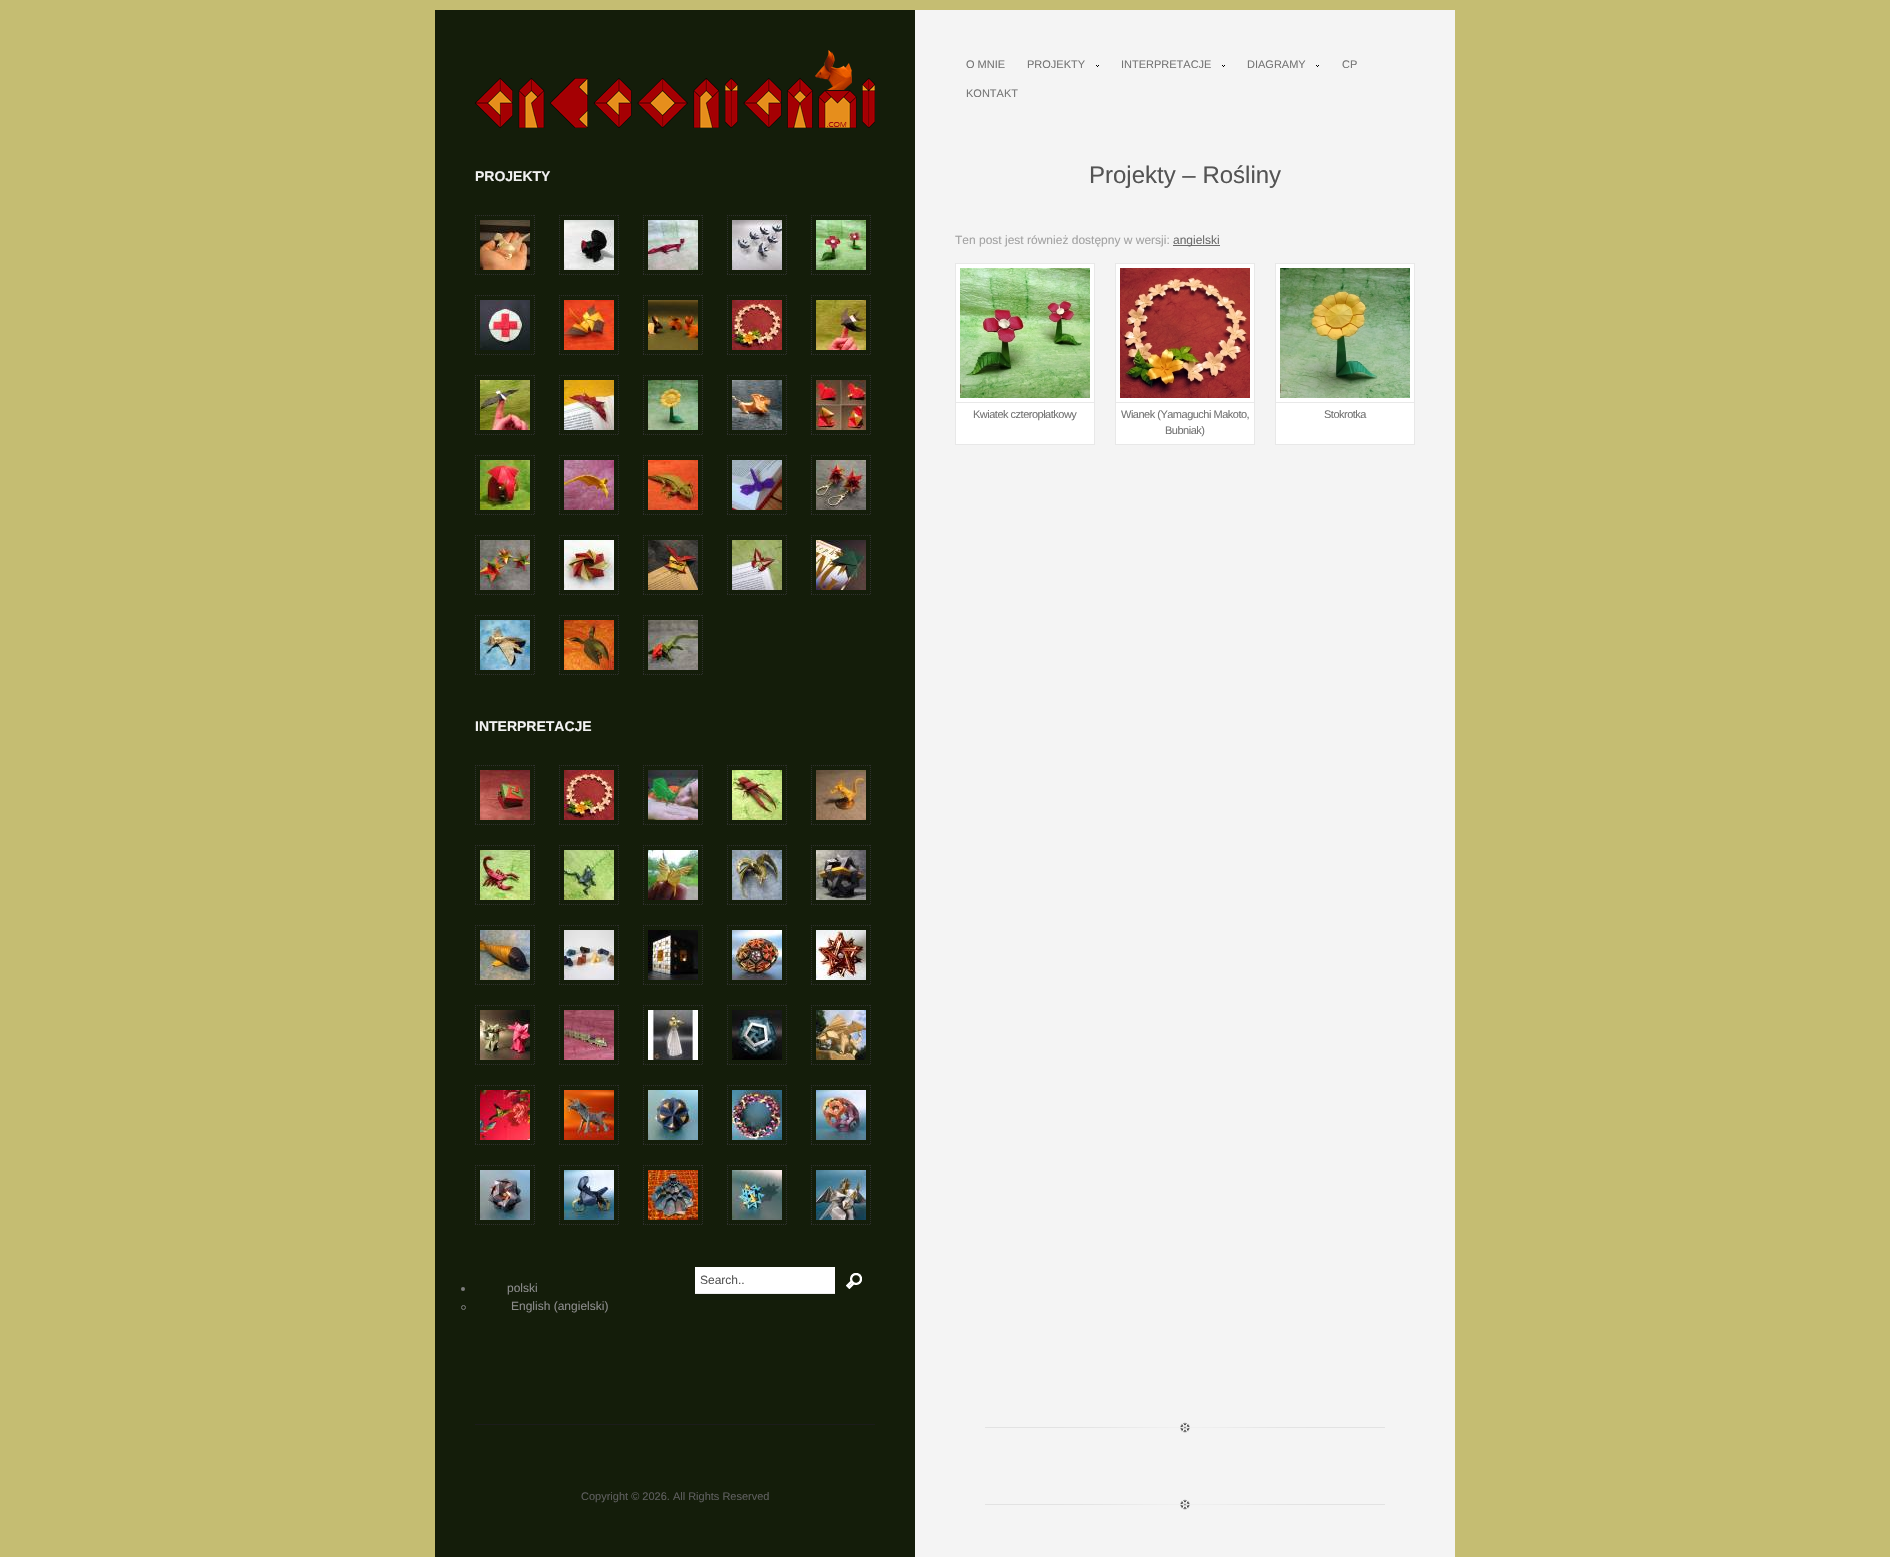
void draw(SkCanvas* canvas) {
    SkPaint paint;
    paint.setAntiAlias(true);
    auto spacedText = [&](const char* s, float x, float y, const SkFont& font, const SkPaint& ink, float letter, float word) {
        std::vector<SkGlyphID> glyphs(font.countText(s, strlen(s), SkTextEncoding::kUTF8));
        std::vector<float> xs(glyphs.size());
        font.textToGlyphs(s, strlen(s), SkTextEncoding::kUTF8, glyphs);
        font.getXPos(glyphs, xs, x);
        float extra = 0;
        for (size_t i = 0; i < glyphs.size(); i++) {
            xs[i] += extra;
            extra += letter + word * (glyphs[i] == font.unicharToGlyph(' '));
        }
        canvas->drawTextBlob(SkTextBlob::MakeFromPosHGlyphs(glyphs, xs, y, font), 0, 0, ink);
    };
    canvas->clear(0xFFC5BD72);
    canvas->drawImageRect(SkImages::DeferredFromEncodedData(SkData::MakeFromFileName("img1.png")), SkRect::MakeXYWH(435, 10, 1020, 1547), SkSamplingOptions());
    canvas->drawImageRect(SkImages::DeferredFromEncodedData(SkData::MakeFromFileName("img2.png")), SkRect::MakeXYWH(475, 50, 400, 78), SkSamplingOptions());
    SkFont font1(fontMgr->matchFamilyStyle("Liberation Sans", SkFontStyle::Bold()), 14);
    font1.setSubpixel(true);
    paint.setColor(0xFFF2F2F2);
    canvas->drawString("PROJEKTY", 475, 181, font1, paint);
    paint.setStyle(SkPaint::kStroke_Style);
    paint.setStrokeWidth(1);
    paint.setColor(0xFF303030);
    paint.setPathEffect(SkDashPathEffect::Make({{1, 1}}, 0));
    canvas->drawPath(SkPathBuilder().moveTo(475, 215.5f).lineTo(535, 215.5f).moveTo(534.5f, 215).lineTo(534.5f, 275).moveTo(475, 274.5f).lineTo(535, 274.5f).moveTo(475.5f, 215).lineTo(475.5f, 275).detach(), paint);
    paint.setPathEffect(nullptr);
    canvas->drawImageRect(SkImages::DeferredFromEncodedData(SkData::MakeFromFileName("img3.png")), SkRect::MakeXYWH(480, 220, 50, 50), SkSamplingOptions());
    paint.setPathEffect(SkDashPathEffect::Make({{1, 1}}, 0));
    canvas->drawPath(SkPathBuilder().moveTo(559, 215.5f).lineTo(619, 215.5f).moveTo(618.5f, 215).lineTo(618.5f, 275).moveTo(559, 274.5f).lineTo(619, 274.5f).moveTo(559.5f, 215).lineTo(559.5f, 275).detach(), paint);
    paint.setPathEffect(nullptr);
    canvas->drawImageRect(SkImages::DeferredFromEncodedData(SkData::MakeFromFileName("img4.png")), SkRect::MakeXYWH(564, 220, 50, 50), SkSamplingOptions());
    paint.setPathEffect(SkDashPathEffect::Make({{1, 1}}, 0));
    canvas->drawPath(SkPathBuilder().moveTo(643, 215.5f).lineTo(703, 215.5f).moveTo(702.5f, 215).lineTo(702.5f, 275).moveTo(643, 274.5f).lineTo(703, 274.5f).moveTo(643.5f, 215).lineTo(643.5f, 275).detach(), paint);
    paint.setPathEffect(nullptr);
    canvas->drawImageRect(SkImages::DeferredFromEncodedData(SkData::MakeFromFileName("img5.png")), SkRect::MakeXYWH(648, 220, 50, 50), SkSamplingOptions());
    paint.setPathEffect(SkDashPathEffect::Make({{1, 1}}, 0));
    canvas->drawPath(SkPathBuilder().moveTo(727, 215.5f).lineTo(787, 215.5f).moveTo(786.5f, 215).lineTo(786.5f, 275).moveTo(727, 274.5f).lineTo(787, 274.5f).moveTo(727.5f, 215).lineTo(727.5f, 275).detach(), paint);
    paint.setPathEffect(nullptr);
    canvas->drawImageRect(SkImages::DeferredFromEncodedData(SkData::MakeFromFileName("img6.png")), SkRect::MakeXYWH(732, 220, 50, 50), SkSamplingOptions());
    paint.setPathEffect(SkDashPathEffect::Make({{1, 1}}, 0));
    canvas->drawPath(SkPathBuilder().moveTo(811, 215.5f).lineTo(871, 215.5f).moveTo(870.5f, 215).lineTo(870.5f, 275).moveTo(811, 274.5f).lineTo(871, 274.5f).moveTo(811.5f, 215).lineTo(811.5f, 275).detach(), paint);
    paint.setPathEffect(nullptr);
    canvas->drawImageRect(SkImages::DeferredFromEncodedData(SkData::MakeFromFileName("img7.png")), SkRect::MakeXYWH(816, 220, 50, 50), SkSamplingOptions());
    paint.setPathEffect(SkDashPathEffect::Make({{1, 1}}, 0));
    canvas->drawPath(SkPathBuilder().moveTo(475, 295.5f).lineTo(535, 295.5f).moveTo(534.5f, 295).lineTo(534.5f, 355).moveTo(475, 354.5f).lineTo(535, 354.5f).moveTo(475.5f, 295).lineTo(475.5f, 355).detach(), paint);
    paint.setPathEffect(nullptr);
    canvas->drawImageRect(SkImages::DeferredFromEncodedData(SkData::MakeFromFileName("img8.png")), SkRect::MakeXYWH(480, 300, 50, 50), SkSamplingOptions());
    paint.setPathEffect(SkDashPathEffect::Make({{1, 1}}, 0));
    canvas->drawPath(SkPathBuilder().moveTo(559, 295.5f).lineTo(619, 295.5f).moveTo(618.5f, 295).lineTo(618.5f, 355).moveTo(559, 354.5f).lineTo(619, 354.5f).moveTo(559.5f, 295).lineTo(559.5f, 355).detach(), paint);
    paint.setPathEffect(nullptr);
    canvas->drawImageRect(SkImages::DeferredFromEncodedData(SkData::MakeFromFileName("img9.png")), SkRect::MakeXYWH(564, 300, 50, 50), SkSamplingOptions());
    paint.setPathEffect(SkDashPathEffect::Make({{1, 1}}, 0));
    canvas->drawPath(SkPathBuilder().moveTo(643, 295.5f).lineTo(703, 295.5f).moveTo(702.5f, 295).lineTo(702.5f, 355).moveTo(643, 354.5f).lineTo(703, 354.5f).moveTo(643.5f, 295).lineTo(643.5f, 355).detach(), paint);
    paint.setPathEffect(nullptr);
    canvas->drawImageRect(SkImages::DeferredFromEncodedData(SkData::MakeFromFileName("img10.png")), SkRect::MakeXYWH(648, 300, 50, 50), SkSamplingOptions());
    paint.setPathEffect(SkDashPathEffect::Make({{1, 1}}, 0));
    canvas->drawPath(SkPathBuilder().moveTo(727, 295.5f).lineTo(787, 295.5f).moveTo(786.5f, 295).lineTo(786.5f, 355).moveTo(727, 354.5f).lineTo(787, 354.5f).moveTo(727.5f, 295).lineTo(727.5f, 355).detach(), paint);
    paint.setPathEffect(nullptr);
    canvas->drawImageRect(SkImages::DeferredFromEncodedData(SkData::MakeFromFileName("img11.png")), SkRect::MakeXYWH(732, 300, 50, 50), SkSamplingOptions());
    paint.setPathEffect(SkDashPathEffect::Make({{1, 1}}, 0));
    canvas->drawPath(SkPathBuilder().moveTo(811, 295.5f).lineTo(871, 295.5f).moveTo(870.5f, 295).lineTo(870.5f, 355).moveTo(811, 354.5f).lineTo(871, 354.5f).moveTo(811.5f, 295).lineTo(811.5f, 355).detach(), paint);
    paint.setPathEffect(nullptr);
    canvas->drawImageRect(SkImages::DeferredFromEncodedData(SkData::MakeFromFileName("img12.png")), SkRect::MakeXYWH(816, 300, 50, 50), SkSamplingOptions());
    paint.setPathEffect(SkDashPathEffect::Make({{1, 1}}, 0));
    canvas->drawPath(SkPathBuilder().moveTo(475, 375.5f).lineTo(535, 375.5f).moveTo(534.5f, 375).lineTo(534.5f, 435).moveTo(475, 434.5f).lineTo(535, 434.5f).moveTo(475.5f, 375).lineTo(475.5f, 435).detach(), paint);
    paint.setPathEffect(nullptr);
    canvas->drawImageRect(SkImages::DeferredFromEncodedData(SkData::MakeFromFileName("img13.png")), SkRect::MakeXYWH(480, 380, 50, 50), SkSamplingOptions());
    paint.setPathEffect(SkDashPathEffect::Make({{1, 1}}, 0));
    canvas->drawPath(SkPathBuilder().moveTo(559, 375.5f).lineTo(619, 375.5f).moveTo(618.5f, 375).lineTo(618.5f, 435).moveTo(559, 434.5f).lineTo(619, 434.5f).moveTo(559.5f, 375).lineTo(559.5f, 435).detach(), paint);
    paint.setPathEffect(nullptr);
    canvas->drawImageRect(SkImages::DeferredFromEncodedData(SkData::MakeFromFileName("img14.png")), SkRect::MakeXYWH(564, 380, 50, 50), SkSamplingOptions());
    paint.setPathEffect(SkDashPathEffect::Make({{1, 1}}, 0));
    canvas->drawPath(SkPathBuilder().moveTo(643, 375.5f).lineTo(703, 375.5f).moveTo(702.5f, 375).lineTo(702.5f, 435).moveTo(643, 434.5f).lineTo(703, 434.5f).moveTo(643.5f, 375).lineTo(643.5f, 435).detach(), paint);
    paint.setPathEffect(nullptr);
    canvas->drawImageRect(SkImages::DeferredFromEncodedData(SkData::MakeFromFileName("img15.png")), SkRect::MakeXYWH(648, 380, 50, 50), SkSamplingOptions());
    paint.setPathEffect(SkDashPathEffect::Make({{1, 1}}, 0));
    canvas->drawPath(SkPathBuilder().moveTo(727, 375.5f).lineTo(787, 375.5f).moveTo(786.5f, 375).lineTo(786.5f, 435).moveTo(727, 434.5f).lineTo(787, 434.5f).moveTo(727.5f, 375).lineTo(727.5f, 435).detach(), paint);
    paint.setPathEffect(nullptr);
    canvas->drawImageRect(SkImages::DeferredFromEncodedData(SkData::MakeFromFileName("img16.png")), SkRect::MakeXYWH(732, 380, 50, 50), SkSamplingOptions());
    paint.setPathEffect(SkDashPathEffect::Make({{1, 1}}, 0));
    canvas->drawPath(SkPathBuilder().moveTo(811, 375.5f).lineTo(871, 375.5f).moveTo(870.5f, 375).lineTo(870.5f, 435).moveTo(811, 434.5f).lineTo(871, 434.5f).moveTo(811.5f, 375).lineTo(811.5f, 435).detach(), paint);
    paint.setPathEffect(nullptr);
    canvas->drawImageRect(SkImages::DeferredFromEncodedData(SkData::MakeFromFileName("img17.png")), SkRect::MakeXYWH(816, 380, 50, 50), SkSamplingOptions());
    paint.setPathEffect(SkDashPathEffect::Make({{1, 1}}, 0));
    canvas->drawPath(SkPathBuilder().moveTo(475, 455.5f).lineTo(535, 455.5f).moveTo(534.5f, 455).lineTo(534.5f, 515).moveTo(475, 514.5f).lineTo(535, 514.5f).moveTo(475.5f, 455).lineTo(475.5f, 515).detach(), paint);
    paint.setPathEffect(nullptr);
    canvas->drawImageRect(SkImages::DeferredFromEncodedData(SkData::MakeFromFileName("img18.png")), SkRect::MakeXYWH(480, 460, 50, 50), SkSamplingOptions());
    paint.setPathEffect(SkDashPathEffect::Make({{1, 1}}, 0));
    canvas->drawPath(SkPathBuilder().moveTo(559, 455.5f).lineTo(619, 455.5f).moveTo(618.5f, 455).lineTo(618.5f, 515).moveTo(559, 514.5f).lineTo(619, 514.5f).moveTo(559.5f, 455).lineTo(559.5f, 515).detach(), paint);
    paint.setPathEffect(nullptr);
    canvas->drawImageRect(SkImages::DeferredFromEncodedData(SkData::MakeFromFileName("img19.png")), SkRect::MakeXYWH(564, 460, 50, 50), SkSamplingOptions());
    paint.setPathEffect(SkDashPathEffect::Make({{1, 1}}, 0));
    canvas->drawPath(SkPathBuilder().moveTo(643, 455.5f).lineTo(703, 455.5f).moveTo(702.5f, 455).lineTo(702.5f, 515).moveTo(643, 514.5f).lineTo(703, 514.5f).moveTo(643.5f, 455).lineTo(643.5f, 515).detach(), paint);
    paint.setPathEffect(nullptr);
    canvas->drawImageRect(SkImages::DeferredFromEncodedData(SkData::MakeFromFileName("img20.png")), SkRect::MakeXYWH(648, 460, 50, 50), SkSamplingOptions());
    paint.setPathEffect(SkDashPathEffect::Make({{1, 1}}, 0));
    canvas->drawPath(SkPathBuilder().moveTo(727, 455.5f).lineTo(787, 455.5f).moveTo(786.5f, 455).lineTo(786.5f, 515).moveTo(727, 514.5f).lineTo(787, 514.5f).moveTo(727.5f, 455).lineTo(727.5f, 515).detach(), paint);
    paint.setPathEffect(nullptr);
    canvas->drawImageRect(SkImages::DeferredFromEncodedData(SkData::MakeFromFileName("img21.png")), SkRect::MakeXYWH(732, 460, 50, 50), SkSamplingOptions());
    paint.setPathEffect(SkDashPathEffect::Make({{1, 1}}, 0));
    canvas->drawPath(SkPathBuilder().moveTo(811, 455.5f).lineTo(871, 455.5f).moveTo(870.5f, 455).lineTo(870.5f, 515).moveTo(811, 514.5f).lineTo(871, 514.5f).moveTo(811.5f, 455).lineTo(811.5f, 515).detach(), paint);
    paint.setPathEffect(nullptr);
    canvas->drawImageRect(SkImages::DeferredFromEncodedData(SkData::MakeFromFileName("img22.png")), SkRect::MakeXYWH(816, 460, 50, 50), SkSamplingOptions());
    paint.setPathEffect(SkDashPathEffect::Make({{1, 1}}, 0));
    canvas->drawPath(SkPathBuilder().moveTo(475, 535.5f).lineTo(535, 535.5f).moveTo(534.5f, 535).lineTo(534.5f, 595).moveTo(475, 594.5f).lineTo(535, 594.5f).moveTo(475.5f, 535).lineTo(475.5f, 595).detach(), paint);
    paint.setPathEffect(nullptr);
    canvas->drawImageRect(SkImages::DeferredFromEncodedData(SkData::MakeFromFileName("img23.png")), SkRect::MakeXYWH(480, 540, 50, 50), SkSamplingOptions());
    paint.setPathEffect(SkDashPathEffect::Make({{1, 1}}, 0));
    canvas->drawPath(SkPathBuilder().moveTo(559, 535.5f).lineTo(619, 535.5f).moveTo(618.5f, 535).lineTo(618.5f, 595).moveTo(559, 594.5f).lineTo(619, 594.5f).moveTo(559.5f, 535).lineTo(559.5f, 595).detach(), paint);
    paint.setPathEffect(nullptr);
    canvas->drawImageRect(SkImages::DeferredFromEncodedData(SkData::MakeFromFileName("img24.png")), SkRect::MakeXYWH(564, 540, 50, 50), SkSamplingOptions());
    paint.setPathEffect(SkDashPathEffect::Make({{1, 1}}, 0));
    canvas->drawPath(SkPathBuilder().moveTo(643, 535.5f).lineTo(703, 535.5f).moveTo(702.5f, 535).lineTo(702.5f, 595).moveTo(643, 594.5f).lineTo(703, 594.5f).moveTo(643.5f, 535).lineTo(643.5f, 595).detach(), paint);
    paint.setPathEffect(nullptr);
    canvas->drawImageRect(SkImages::DeferredFromEncodedData(SkData::MakeFromFileName("img25.png")), SkRect::MakeXYWH(648, 540, 50, 50), SkSamplingOptions());
    paint.setPathEffect(SkDashPathEffect::Make({{1, 1}}, 0));
    canvas->drawPath(SkPathBuilder().moveTo(727, 535.5f).lineTo(787, 535.5f).moveTo(786.5f, 535).lineTo(786.5f, 595).moveTo(727, 594.5f).lineTo(787, 594.5f).moveTo(727.5f, 535).lineTo(727.5f, 595).detach(), paint);
    paint.setPathEffect(nullptr);
    canvas->drawImageRect(SkImages::DeferredFromEncodedData(SkData::MakeFromFileName("img26.png")), SkRect::MakeXYWH(732, 540, 50, 50), SkSamplingOptions());
    paint.setPathEffect(SkDashPathEffect::Make({{1, 1}}, 0));
    canvas->drawPath(SkPathBuilder().moveTo(811, 535.5f).lineTo(871, 535.5f).moveTo(870.5f, 535).lineTo(870.5f, 595).moveTo(811, 594.5f).lineTo(871, 594.5f).moveTo(811.5f, 535).lineTo(811.5f, 595).detach(), paint);
    paint.setPathEffect(nullptr);
    canvas->drawImageRect(SkImages::DeferredFromEncodedData(SkData::MakeFromFileName("img27.png")), SkRect::MakeXYWH(816, 540, 50, 50), SkSamplingOptions());
    paint.setPathEffect(SkDashPathEffect::Make({{1, 1}}, 0));
    canvas->drawPath(SkPathBuilder().moveTo(475, 615.5f).lineTo(535, 615.5f).moveTo(534.5f, 615).lineTo(534.5f, 675).moveTo(475, 674.5f).lineTo(535, 674.5f).moveTo(475.5f, 615).lineTo(475.5f, 675).detach(), paint);
    paint.setPathEffect(nullptr);
    canvas->drawImageRect(SkImages::DeferredFromEncodedData(SkData::MakeFromFileName("img28.png")), SkRect::MakeXYWH(480, 620, 50, 50), SkSamplingOptions());
    paint.setPathEffect(SkDashPathEffect::Make({{1, 1}}, 0));
    canvas->drawPath(SkPathBuilder().moveTo(559, 615.5f).lineTo(619, 615.5f).moveTo(618.5f, 615).lineTo(618.5f, 675).moveTo(559, 674.5f).lineTo(619, 674.5f).moveTo(559.5f, 615).lineTo(559.5f, 675).detach(), paint);
    paint.setPathEffect(nullptr);
    canvas->drawImageRect(SkImages::DeferredFromEncodedData(SkData::MakeFromFileName("img29.png")), SkRect::MakeXYWH(564, 620, 50, 50), SkSamplingOptions());
    paint.setPathEffect(SkDashPathEffect::Make({{1, 1}}, 0));
    canvas->drawPath(SkPathBuilder().moveTo(643, 615.5f).lineTo(703, 615.5f).moveTo(702.5f, 615).lineTo(702.5f, 675).moveTo(643, 674.5f).lineTo(703, 674.5f).moveTo(643.5f, 615).lineTo(643.5f, 675).detach(), paint);
    paint.setPathEffect(nullptr);
    canvas->drawImageRect(SkImages::DeferredFromEncodedData(SkData::MakeFromFileName("img30.png")), SkRect::MakeXYWH(648, 620, 50, 50), SkSamplingOptions());
    paint.setStyle(SkPaint::kFill_Style);
    paint.setColor(0xFFF2F2F2);
    canvas->drawString("INTERPRETACJE", 475, 731, font1, paint);
    paint.setStyle(SkPaint::kStroke_Style);
    paint.setColor(0xFF303030);
    paint.setPathEffect(SkDashPathEffect::Make({{1, 1}}, 0));
    canvas->drawPath(SkPathBuilder().moveTo(475, 765.5f).lineTo(535, 765.5f).moveTo(534.5f, 765).lineTo(534.5f, 825).moveTo(475, 824.5f).lineTo(535, 824.5f).moveTo(475.5f, 765).lineTo(475.5f, 825).detach(), paint);
    paint.setPathEffect(nullptr);
    canvas->drawImageRect(SkImages::DeferredFromEncodedData(SkData::MakeFromFileName("img31.png")), SkRect::MakeXYWH(480, 770, 50, 50), SkSamplingOptions());
    paint.setPathEffect(SkDashPathEffect::Make({{1, 1}}, 0));
    canvas->drawPath(SkPathBuilder().moveTo(559, 765.5f).lineTo(619, 765.5f).moveTo(618.5f, 765).lineTo(618.5f, 825).moveTo(559, 824.5f).lineTo(619, 824.5f).moveTo(559.5f, 765).lineTo(559.5f, 825).detach(), paint);
    paint.setPathEffect(nullptr);
    canvas->drawImageRect(SkImages::DeferredFromEncodedData(SkData::MakeFromFileName("img11.png")), SkRect::MakeXYWH(564, 770, 50, 50), SkSamplingOptions());
    paint.setPathEffect(SkDashPathEffect::Make({{1, 1}}, 0));
    canvas->drawPath(SkPathBuilder().moveTo(643, 765.5f).lineTo(703, 765.5f).moveTo(702.5f, 765).lineTo(702.5f, 825).moveTo(643, 824.5f).lineTo(703, 824.5f).moveTo(643.5f, 765).lineTo(643.5f, 825).detach(), paint);
    paint.setPathEffect(nullptr);
    canvas->drawImageRect(SkImages::DeferredFromEncodedData(SkData::MakeFromFileName("img32.png")), SkRect::MakeXYWH(648, 770, 50, 50), SkSamplingOptions());
    paint.setPathEffect(SkDashPathEffect::Make({{1, 1}}, 0));
    canvas->drawPath(SkPathBuilder().moveTo(727, 765.5f).lineTo(787, 765.5f).moveTo(786.5f, 765).lineTo(786.5f, 825).moveTo(727, 824.5f).lineTo(787, 824.5f).moveTo(727.5f, 765).lineTo(727.5f, 825).detach(), paint);
    paint.setPathEffect(nullptr);
    canvas->drawImageRect(SkImages::DeferredFromEncodedData(SkData::MakeFromFileName("img33.png")), SkRect::MakeXYWH(732, 770, 50, 50), SkSamplingOptions());
    paint.setPathEffect(SkDashPathEffect::Make({{1, 1}}, 0));
    canvas->drawPath(SkPathBuilder().moveTo(811, 765.5f).lineTo(871, 765.5f).moveTo(870.5f, 765).lineTo(870.5f, 825).moveTo(811, 824.5f).lineTo(871, 824.5f).moveTo(811.5f, 765).lineTo(811.5f, 825).detach(), paint);
    paint.setPathEffect(nullptr);
    canvas->drawImageRect(SkImages::DeferredFromEncodedData(SkData::MakeFromFileName("img34.png")), SkRect::MakeXYWH(816, 770, 50, 50), SkSamplingOptions());
    paint.setPathEffect(SkDashPathEffect::Make({{1, 1}}, 0));
    canvas->drawPath(SkPathBuilder().moveTo(475, 845.5f).lineTo(535, 845.5f).moveTo(534.5f, 845).lineTo(534.5f, 905).moveTo(475, 904.5f).lineTo(535, 904.5f).moveTo(475.5f, 845).lineTo(475.5f, 905).detach(), paint);
    paint.setPathEffect(nullptr);
    canvas->drawImageRect(SkImages::DeferredFromEncodedData(SkData::MakeFromFileName("img35.png")), SkRect::MakeXYWH(480, 850, 50, 50), SkSamplingOptions());
    paint.setPathEffect(SkDashPathEffect::Make({{1, 1}}, 0));
    canvas->drawPath(SkPathBuilder().moveTo(559, 845.5f).lineTo(619, 845.5f).moveTo(618.5f, 845).lineTo(618.5f, 905).moveTo(559, 904.5f).lineTo(619, 904.5f).moveTo(559.5f, 845).lineTo(559.5f, 905).detach(), paint);
    paint.setPathEffect(nullptr);
    canvas->drawImageRect(SkImages::DeferredFromEncodedData(SkData::MakeFromFileName("img36.png")), SkRect::MakeXYWH(564, 850, 50, 50), SkSamplingOptions());
    paint.setPathEffect(SkDashPathEffect::Make({{1, 1}}, 0));
    canvas->drawPath(SkPathBuilder().moveTo(643, 845.5f).lineTo(703, 845.5f).moveTo(702.5f, 845).lineTo(702.5f, 905).moveTo(643, 904.5f).lineTo(703, 904.5f).moveTo(643.5f, 845).lineTo(643.5f, 905).detach(), paint);
    paint.setPathEffect(nullptr);
    canvas->drawImageRect(SkImages::DeferredFromEncodedData(SkData::MakeFromFileName("img37.png")), SkRect::MakeXYWH(648, 850, 50, 50), SkSamplingOptions());
    paint.setPathEffect(SkDashPathEffect::Make({{1, 1}}, 0));
    canvas->drawPath(SkPathBuilder().moveTo(727, 845.5f).lineTo(787, 845.5f).moveTo(786.5f, 845).lineTo(786.5f, 905).moveTo(727, 904.5f).lineTo(787, 904.5f).moveTo(727.5f, 845).lineTo(727.5f, 905).detach(), paint);
    paint.setPathEffect(nullptr);
    canvas->drawImageRect(SkImages::DeferredFromEncodedData(SkData::MakeFromFileName("img38.png")), SkRect::MakeXYWH(732, 850, 50, 50), SkSamplingOptions());
    paint.setPathEffect(SkDashPathEffect::Make({{1, 1}}, 0));
    canvas->drawPath(SkPathBuilder().moveTo(811, 845.5f).lineTo(871, 845.5f).moveTo(870.5f, 845).lineTo(870.5f, 905).moveTo(811, 904.5f).lineTo(871, 904.5f).moveTo(811.5f, 845).lineTo(811.5f, 905).detach(), paint);
    paint.setPathEffect(nullptr);
    canvas->drawImageRect(SkImages::DeferredFromEncodedData(SkData::MakeFromFileName("img39.png")), SkRect::MakeXYWH(816, 850, 50, 50), SkSamplingOptions());
    paint.setPathEffect(SkDashPathEffect::Make({{1, 1}}, 0));
    canvas->drawPath(SkPathBuilder().moveTo(475, 925.5f).lineTo(535, 925.5f).moveTo(534.5f, 925).lineTo(534.5f, 985).moveTo(475, 984.5f).lineTo(535, 984.5f).moveTo(475.5f, 925).lineTo(475.5f, 985).detach(), paint);
    paint.setPathEffect(nullptr);
    canvas->drawImageRect(SkImages::DeferredFromEncodedData(SkData::MakeFromFileName("img40.png")), SkRect::MakeXYWH(480, 930, 50, 50), SkSamplingOptions());
    paint.setPathEffect(SkDashPathEffect::Make({{1, 1}}, 0));
    canvas->drawPath(SkPathBuilder().moveTo(559, 925.5f).lineTo(619, 925.5f).moveTo(618.5f, 925).lineTo(618.5f, 985).moveTo(559, 984.5f).lineTo(619, 984.5f).moveTo(559.5f, 925).lineTo(559.5f, 985).detach(), paint);
    paint.setPathEffect(nullptr);
    canvas->drawImageRect(SkImages::DeferredFromEncodedData(SkData::MakeFromFileName("img41.png")), SkRect::MakeXYWH(564, 930, 50, 50), SkSamplingOptions());
    paint.setPathEffect(SkDashPathEffect::Make({{1, 1}}, 0));
    canvas->drawPath(SkPathBuilder().moveTo(643, 925.5f).lineTo(703, 925.5f).moveTo(702.5f, 925).lineTo(702.5f, 985).moveTo(643, 984.5f).lineTo(703, 984.5f).moveTo(643.5f, 925).lineTo(643.5f, 985).detach(), paint);
    paint.setPathEffect(nullptr);
    canvas->drawImageRect(SkImages::DeferredFromEncodedData(SkData::MakeFromFileName("img42.png")), SkRect::MakeXYWH(648, 930, 50, 50), SkSamplingOptions());
    paint.setPathEffect(SkDashPathEffect::Make({{1, 1}}, 0));
    canvas->drawPath(SkPathBuilder().moveTo(727, 925.5f).lineTo(787, 925.5f).moveTo(786.5f, 925).lineTo(786.5f, 985).moveTo(727, 984.5f).lineTo(787, 984.5f).moveTo(727.5f, 925).lineTo(727.5f, 985).detach(), paint);
    paint.setPathEffect(nullptr);
    canvas->drawImageRect(SkImages::DeferredFromEncodedData(SkData::MakeFromFileName("img43.png")), SkRect::MakeXYWH(732, 930, 50, 50), SkSamplingOptions());
    paint.setPathEffect(SkDashPathEffect::Make({{1, 1}}, 0));
    canvas->drawPath(SkPathBuilder().moveTo(811, 925.5f).lineTo(871, 925.5f).moveTo(870.5f, 925).lineTo(870.5f, 985).moveTo(811, 984.5f).lineTo(871, 984.5f).moveTo(811.5f, 925).lineTo(811.5f, 985).detach(), paint);
    paint.setPathEffect(nullptr);
    canvas->drawImageRect(SkImages::DeferredFromEncodedData(SkData::MakeFromFileName("img44.png")), SkRect::MakeXYWH(816, 930, 50, 50), SkSamplingOptions());
    paint.setPathEffect(SkDashPathEffect::Make({{1, 1}}, 0));
    canvas->drawPath(SkPathBuilder().moveTo(475, 1005.5f).lineTo(535, 1005.5f).moveTo(534.5f, 1005).lineTo(534.5f, 1065).moveTo(475, 1064.5f).lineTo(535, 1064.5f).moveTo(475.5f, 1005).lineTo(475.5f, 1065).detach(), paint);
    paint.setPathEffect(nullptr);
    canvas->drawImageRect(SkImages::DeferredFromEncodedData(SkData::MakeFromFileName("img45.png")), SkRect::MakeXYWH(480, 1010, 50, 50), SkSamplingOptions());
    paint.setPathEffect(SkDashPathEffect::Make({{1, 1}}, 0));
    canvas->drawPath(SkPathBuilder().moveTo(559, 1005.5f).lineTo(619, 1005.5f).moveTo(618.5f, 1005).lineTo(618.5f, 1065).moveTo(559, 1064.5f).lineTo(619, 1064.5f).moveTo(559.5f, 1005).lineTo(559.5f, 1065).detach(), paint);
    paint.setPathEffect(nullptr);
    canvas->drawImageRect(SkImages::DeferredFromEncodedData(SkData::MakeFromFileName("img46.png")), SkRect::MakeXYWH(564, 1010, 50, 50), SkSamplingOptions());
    paint.setPathEffect(SkDashPathEffect::Make({{1, 1}}, 0));
    canvas->drawPath(SkPathBuilder().moveTo(643, 1005.5f).lineTo(703, 1005.5f).moveTo(702.5f, 1005).lineTo(702.5f, 1065).moveTo(643, 1064.5f).lineTo(703, 1064.5f).moveTo(643.5f, 1005).lineTo(643.5f, 1065).detach(), paint);
    paint.setPathEffect(nullptr);
    canvas->drawImageRect(SkImages::DeferredFromEncodedData(SkData::MakeFromFileName("img47.png")), SkRect::MakeXYWH(648, 1010, 50, 50), SkSamplingOptions());
    paint.setPathEffect(SkDashPathEffect::Make({{1, 1}}, 0));
    canvas->drawPath(SkPathBuilder().moveTo(727, 1005.5f).lineTo(787, 1005.5f).moveTo(786.5f, 1005).lineTo(786.5f, 1065).moveTo(727, 1064.5f).lineTo(787, 1064.5f).moveTo(727.5f, 1005).lineTo(727.5f, 1065).detach(), paint);
    paint.setPathEffect(nullptr);
    canvas->drawImageRect(SkImages::DeferredFromEncodedData(SkData::MakeFromFileName("img48.png")), SkRect::MakeXYWH(732, 1010, 50, 50), SkSamplingOptions());
    paint.setPathEffect(SkDashPathEffect::Make({{1, 1}}, 0));
    canvas->drawPath(SkPathBuilder().moveTo(811, 1005.5f).lineTo(871, 1005.5f).moveTo(870.5f, 1005).lineTo(870.5f, 1065).moveTo(811, 1064.5f).lineTo(871, 1064.5f).moveTo(811.5f, 1005).lineTo(811.5f, 1065).detach(), paint);
    paint.setPathEffect(nullptr);
    canvas->drawImageRect(SkImages::DeferredFromEncodedData(SkData::MakeFromFileName("img49.png")), SkRect::MakeXYWH(816, 1010, 50, 50), SkSamplingOptions());
    paint.setPathEffect(SkDashPathEffect::Make({{1, 1}}, 0));
    canvas->drawPath(SkPathBuilder().moveTo(475, 1085.5f).lineTo(535, 1085.5f).moveTo(534.5f, 1085).lineTo(534.5f, 1145).moveTo(475, 1144.5f).lineTo(535, 1144.5f).moveTo(475.5f, 1085).lineTo(475.5f, 1145).detach(), paint);
    paint.setPathEffect(nullptr);
    canvas->drawImageRect(SkImages::DeferredFromEncodedData(SkData::MakeFromFileName("img50.png")), SkRect::MakeXYWH(480, 1090, 50, 50), SkSamplingOptions());
    paint.setPathEffect(SkDashPathEffect::Make({{1, 1}}, 0));
    canvas->drawPath(SkPathBuilder().moveTo(559, 1085.5f).lineTo(619, 1085.5f).moveTo(618.5f, 1085).lineTo(618.5f, 1145).moveTo(559, 1144.5f).lineTo(619, 1144.5f).moveTo(559.5f, 1085).lineTo(559.5f, 1145).detach(), paint);
    paint.setPathEffect(nullptr);
    canvas->drawImageRect(SkImages::DeferredFromEncodedData(SkData::MakeFromFileName("img51.png")), SkRect::MakeXYWH(564, 1090, 50, 50), SkSamplingOptions());
    paint.setPathEffect(SkDashPathEffect::Make({{1, 1}}, 0));
    canvas->drawPath(SkPathBuilder().moveTo(643, 1085.5f).lineTo(703, 1085.5f).moveTo(702.5f, 1085).lineTo(702.5f, 1145).moveTo(643, 1144.5f).lineTo(703, 1144.5f).moveTo(643.5f, 1085).lineTo(643.5f, 1145).detach(), paint);
    paint.setPathEffect(nullptr);
    canvas->drawImageRect(SkImages::DeferredFromEncodedData(SkData::MakeFromFileName("img52.png")), SkRect::MakeXYWH(648, 1090, 50, 50), SkSamplingOptions());
    paint.setPathEffect(SkDashPathEffect::Make({{1, 1}}, 0));
    canvas->drawPath(SkPathBuilder().moveTo(727, 1085.5f).lineTo(787, 1085.5f).moveTo(786.5f, 1085).lineTo(786.5f, 1145).moveTo(727, 1144.5f).lineTo(787, 1144.5f).moveTo(727.5f, 1085).lineTo(727.5f, 1145).detach(), paint);
    paint.setPathEffect(nullptr);
    canvas->drawImageRect(SkImages::DeferredFromEncodedData(SkData::MakeFromFileName("img53.png")), SkRect::MakeXYWH(732, 1090, 50, 50), SkSamplingOptions());
    paint.setPathEffect(SkDashPathEffect::Make({{1, 1}}, 0));
    canvas->drawPath(SkPathBuilder().moveTo(811, 1085.5f).lineTo(871, 1085.5f).moveTo(870.5f, 1085).lineTo(870.5f, 1145).moveTo(811, 1144.5f).lineTo(871, 1144.5f).moveTo(811.5f, 1085).lineTo(811.5f, 1145).detach(), paint);
    paint.setPathEffect(nullptr);
    canvas->drawImageRect(SkImages::DeferredFromEncodedData(SkData::MakeFromFileName("img54.png")), SkRect::MakeXYWH(816, 1090, 50, 50), SkSamplingOptions());
    paint.setPathEffect(SkDashPathEffect::Make({{1, 1}}, 0));
    canvas->drawPath(SkPathBuilder().moveTo(475, 1165.5f).lineTo(535, 1165.5f).moveTo(534.5f, 1165).lineTo(534.5f, 1225).moveTo(475, 1224.5f).lineTo(535, 1224.5f).moveTo(475.5f, 1165).lineTo(475.5f, 1225).detach(), paint);
    paint.setPathEffect(nullptr);
    canvas->drawImageRect(SkImages::DeferredFromEncodedData(SkData::MakeFromFileName("img55.png")), SkRect::MakeXYWH(480, 1170, 50, 50), SkSamplingOptions());
    paint.setPathEffect(SkDashPathEffect::Make({{1, 1}}, 0));
    canvas->drawPath(SkPathBuilder().moveTo(559, 1165.5f).lineTo(619, 1165.5f).moveTo(618.5f, 1165).lineTo(618.5f, 1225).moveTo(559, 1224.5f).lineTo(619, 1224.5f).moveTo(559.5f, 1165).lineTo(559.5f, 1225).detach(), paint);
    paint.setPathEffect(nullptr);
    canvas->drawImageRect(SkImages::DeferredFromEncodedData(SkData::MakeFromFileName("img56.png")), SkRect::MakeXYWH(564, 1170, 50, 50), SkSamplingOptions());
    paint.setPathEffect(SkDashPathEffect::Make({{1, 1}}, 0));
    canvas->drawPath(SkPathBuilder().moveTo(643, 1165.5f).lineTo(703, 1165.5f).moveTo(702.5f, 1165).lineTo(702.5f, 1225).moveTo(643, 1224.5f).lineTo(703, 1224.5f).moveTo(643.5f, 1165).lineTo(643.5f, 1225).detach(), paint);
    paint.setPathEffect(nullptr);
    canvas->drawImageRect(SkImages::DeferredFromEncodedData(SkData::MakeFromFileName("img57.png")), SkRect::MakeXYWH(648, 1170, 50, 50), SkSamplingOptions());
    paint.setPathEffect(SkDashPathEffect::Make({{1, 1}}, 0));
    canvas->drawPath(SkPathBuilder().moveTo(727, 1165.5f).lineTo(787, 1165.5f).moveTo(786.5f, 1165).lineTo(786.5f, 1225).moveTo(727, 1224.5f).lineTo(787, 1224.5f).moveTo(727.5f, 1165).lineTo(727.5f, 1225).detach(), paint);
    paint.setPathEffect(nullptr);
    canvas->drawImageRect(SkImages::DeferredFromEncodedData(SkData::MakeFromFileName("img58.png")), SkRect::MakeXYWH(732, 1170, 50, 50), SkSamplingOptions());
    paint.setPathEffect(SkDashPathEffect::Make({{1, 1}}, 0));
    canvas->drawPath(SkPathBuilder().moveTo(811, 1165.5f).lineTo(871, 1165.5f).moveTo(870.5f, 1165).lineTo(870.5f, 1225).moveTo(811, 1224.5f).lineTo(871, 1224.5f).moveTo(811.5f, 1165).lineTo(811.5f, 1225).detach(), paint);
    paint.setPathEffect(nullptr);
    canvas->drawImageRect(SkImages::DeferredFromEncodedData(SkData::MakeFromFileName("img59.png")), SkRect::MakeXYWH(816, 1170, 50, 50), SkSamplingOptions());
    paint.setStyle(SkPaint::kFill_Style);
    paint.setColor(0xFFFFFFFF);
    canvas->drawRect(SkRect::MakeXYWH(695, 1267, 140, 26), paint);
    paint.setColor(0xFFEEEEEE);
    canvas->drawRect(SkRect::MakeXYWH(695, 1293, 140, 1), paint);
    SkFont font2(fontMgr->matchFamilyStyle("Liberation Sans", SkFontStyle::Normal()), 12);
    font2.setSubpixel(true);
    paint.setColor(0xFF545454);
    canvas->drawString("Search..", 700, 1284, font2, paint);
    canvas->drawImageRect(SkImages::DeferredFromEncodedData(SkData::MakeFromFileName("img60.png")), SkRect::MakeXYWH(846, 1273, 16, 16), SkSamplingOptions());
    paint.setColor(0xFF7D7D7D);
    canvas->drawCircle(463, 1289, 2, paint);
    paint.setColor(0xFF8B8B8B);
    canvas->drawString("polski", 507, 1292, font2, paint);
    paint.setStyle(SkPaint::kStroke_Style);
    paint.setColor(0xFF7D7D7D);
    canvas->drawCircle(463.5f, 1307.5f, 2, paint);
    paint.setStyle(SkPaint::kFill_Style);
    paint.setColor(0xFF8B8B8B);
    canvas->drawString("English (angielski)", 511, 1310, font2, paint);
    SkFont font3(fontMgr->matchFamilyStyle("Liberation Sans", SkFontStyle::Normal()), 11);
    font3.setSubpixel(true);
    paint.setColor(0xFF747474);
    canvas->drawString("O MNIE", 966, 68, font3, paint);
    canvas->drawString("PROJEKTY", 1027, 68, font3, paint);
    canvas->drawImageRect(SkImages::DeferredFromEncodedData(SkData::MakeFromFileName("img61.png")), SkRect::MakeXYWH(1096, 65, 3, 2), SkSamplingOptions());
    canvas->drawString("INTERPRETACJE", 1121, 68, font3, paint);
    canvas->drawImageRect(SkImages::DeferredFromEncodedData(SkData::MakeFromFileName("img61.png")), SkRect::MakeXYWH(1222, 65, 3, 2), SkSamplingOptions());
    canvas->drawString("DIAGRAMY", 1247, 68, font3, paint);
    canvas->drawImageRect(SkImages::DeferredFromEncodedData(SkData::MakeFromFileName("img61.png")), SkRect::MakeXYWH(1316, 65, 3, 2), SkSamplingOptions());
    canvas->drawString("CP", 1342, 68, font3, paint);
    canvas->drawString("KONTAKT", 966, 97, font3, paint);
    SkFont font4(fontMgr->matchFamilyStyle("Liberation Sans", SkFontStyle::Normal()), 24);
    font4.setSubpixel(true);
    paint.setColor(0xFF545454);
    canvas->drawString("Projekty – Rośliny", 1089, 183, font4, paint);
    paint.setColor(0xFFA3A3A3);
    canvas->drawString("Ten post jest również dostępny w wersji:", 955, 244, font2, paint);
    paint.setColor(0xFF6C6C6C);
    canvas->drawRect(SkRect::MakeXYWH(1173, 245, 47, 1), paint);
    canvas->drawString("angielski", 1173, 244, font2, paint);
    paint.setColor(0xFFE8E8E8);
    canvas->drawRect(SkRect::MakeXYWH(1094, 398, 1, 47), paint);
    canvas->drawRect(SkRect::MakeXYWH(955, 444, 140, 1), paint);
    canvas->drawRect(SkRect::MakeXYWH(955, 398, 1, 47), paint);
    paint.setColor(0xFFFFFFFF);
    canvas->drawRect(SkRect::MakeXYWH(955.5f, 263.5f, 139, 139), paint);
    paint.setStyle(SkPaint::kStroke_Style);
    paint.setColor(0xFFE8E8E8);
    canvas->drawRect(SkRect::MakeXYWH(955.5f, 263.5f, 139, 139), paint);
    canvas->drawImageRect(SkImages::DeferredFromEncodedData(SkData::MakeFromFileName("img62.png")), SkRect::MakeXYWH(960, 268, 130, 130), SkSamplingOptions());
    paint.setStyle(SkPaint::kFill_Style);
    paint.setColor(0xFFFFFFFF);
    canvas->drawRect(SkRect::MakeXYWH(956, 403, 138, 41), paint);
    paint.setColor(0xFF747474);
    spacedText("Kwiatek czteropłatkowy", 973, 418, font3, paint, -0.5f, 0);
    paint.setColor(0xFFE8E8E8);
    canvas->drawRect(SkRect::MakeXYWH(1254, 398, 1, 47), paint);
    canvas->drawRect(SkRect::MakeXYWH(1115, 444, 140, 1), paint);
    canvas->drawRect(SkRect::MakeXYWH(1115, 398, 1, 47), paint);
    paint.setColor(0xFFFFFFFF);
    canvas->drawRect(SkRect::MakeXYWH(1115.5f, 263.5f, 139, 139), paint);
    paint.setStyle(SkPaint::kStroke_Style);
    paint.setColor(0xFFE8E8E8);
    canvas->drawRect(SkRect::MakeXYWH(1115.5f, 263.5f, 139, 139), paint);
    canvas->drawImageRect(SkImages::DeferredFromEncodedData(SkData::MakeFromFileName("img63.png")), SkRect::MakeXYWH(1120, 268, 130, 130), SkSamplingOptions());
    paint.setStyle(SkPaint::kFill_Style);
    paint.setColor(0xFFFFFFFF);
    canvas->drawRect(SkRect::MakeXYWH(1116, 403, 138, 41), paint);
    paint.setColor(0xFF747474);
    spacedText("Wianek (Yamaguchi Makoto,", 1121, 418, font3, paint, -0.5f, 0);
    spacedText("Bubniak)", 1165, 434, font3, paint, -0.5f, 0);
    paint.setColor(0xFFE8E8E8);
    canvas->drawRect(SkRect::MakeXYWH(1414, 398, 1, 47), paint);
    canvas->drawRect(SkRect::MakeXYWH(1275, 444, 140, 1), paint);
    canvas->drawRect(SkRect::MakeXYWH(1275, 398, 1, 47), paint);
    paint.setColor(0xFFFFFFFF);
    canvas->drawRect(SkRect::MakeXYWH(1275.5f, 263.5f, 139, 139), paint);
    paint.setStyle(SkPaint::kStroke_Style);
    paint.setColor(0xFFE8E8E8);
    canvas->drawRect(SkRect::MakeXYWH(1275.5f, 263.5f, 139, 139), paint);
    canvas->drawImageRect(SkImages::DeferredFromEncodedData(SkData::MakeFromFileName("img64.png")), SkRect::MakeXYWH(1280, 268, 130, 130), SkSamplingOptions());
    paint.setStyle(SkPaint::kFill_Style);
    paint.setColor(0xFFFFFFFF);
    canvas->drawRect(SkRect::MakeXYWH(1276, 403, 138, 41), paint);
    paint.setColor(0xFF747474);
    spacedText("Stokrotka", 1324, 418, font3, paint, -0.5f, 0);
    paint.setColor(0xFF1C1C1C);
    canvas->drawRect(SkRect::MakeXYWH(475, 1424, 400, 1), paint);
    paint.setColor(0xFF5D5D5D);
    canvas->drawString("Copyright © 2026. All Rights Reserved", 581, 1500, font3, paint);
    canvas->drawImageRect(SkImages::DeferredFromEncodedData(SkData::MakeFromFileName("img65.png")), SkRect::MakeXYWH(985, 1422, 400, 11), SkSamplingOptions());
    canvas->drawImageRect(SkImages::DeferredFromEncodedData(SkData::MakeFromFileName("img65.png")), SkRect::MakeXYWH(985, 1499, 400, 11), SkSamplingOptions());
}
